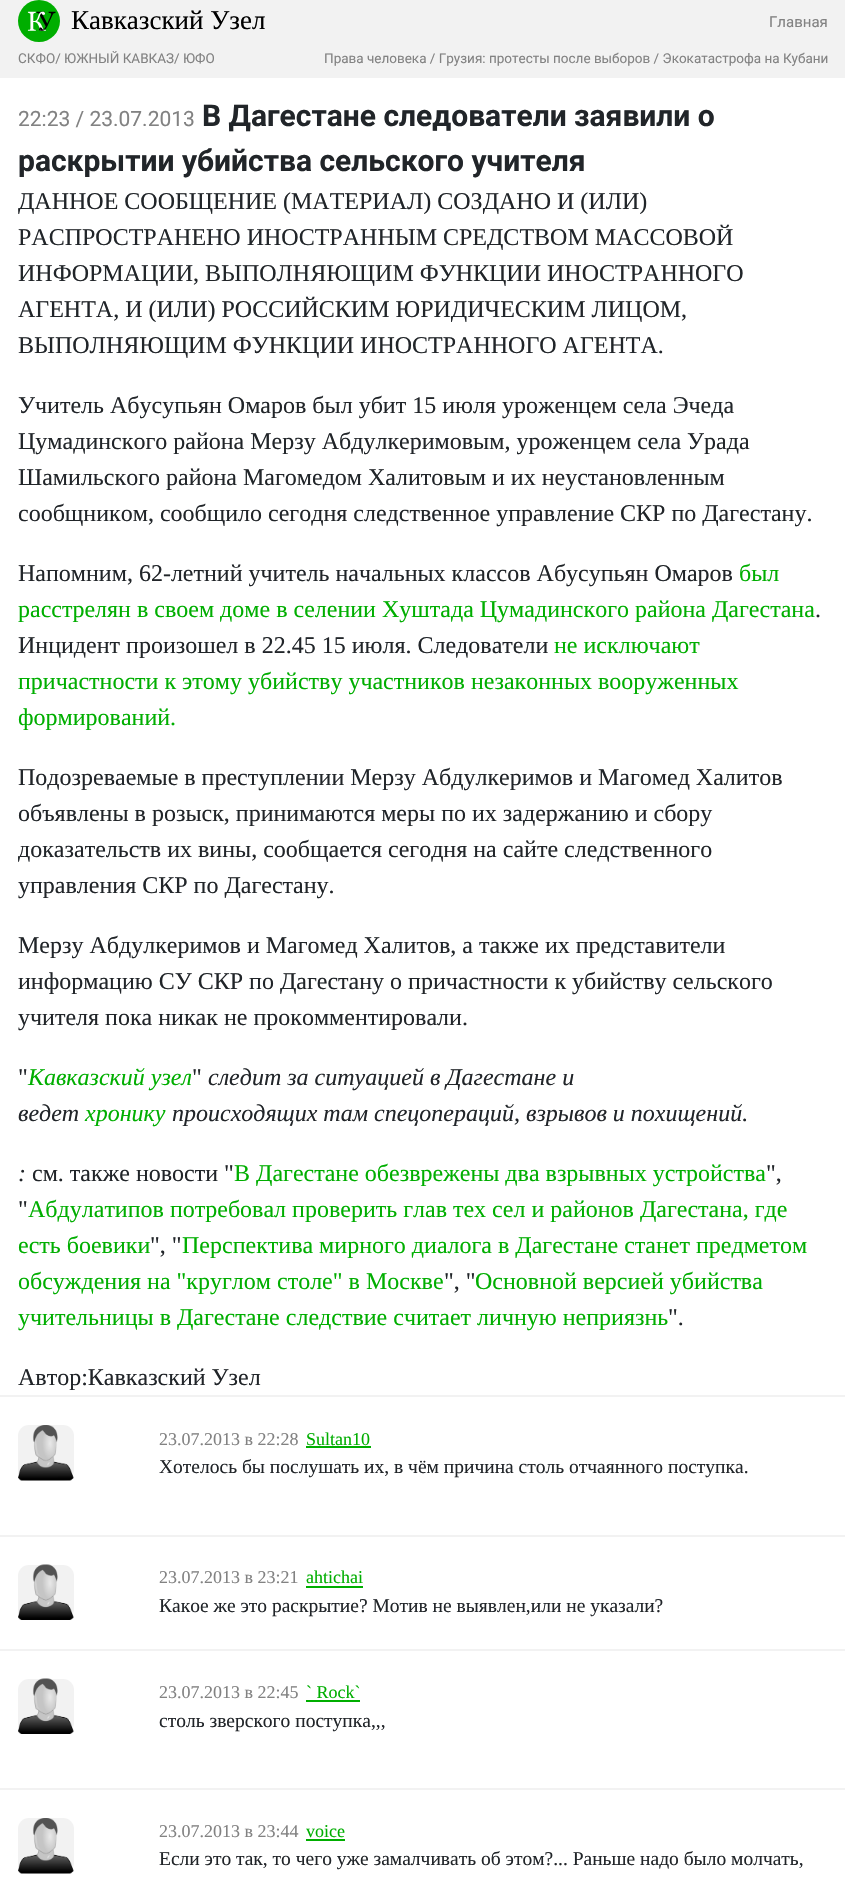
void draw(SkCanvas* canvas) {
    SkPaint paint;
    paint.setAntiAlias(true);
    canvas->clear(0xFFFFFFFF);
    paint.setColor(0xFFF2F2F2);
    canvas->drawRect(SkRect::MakeXYWH(0, 0, 845, 78), paint);
    canvas->drawImageRect(SkImages::DeferredFromEncodedData(SkData::MakeFromFileName("img1.png")), SkRect::MakeXYWH(18, 0, 42, 42), SkSamplingOptions());
    SkFont font1(fontMgr->matchFamilyStyle("Liberation Serif", SkFontStyle::Normal()), 27);
    font1.setSubpixel(true);
    paint.setColor(0xFF000000);
    canvas->drawString("Кавказский Узел", 71, 29, font1, paint);
    SkFont font2(fontMgr->matchFamilyStyle("Roboto", SkFontStyle::Normal()), 15);
    font2.setSubpixel(true);
    paint.setColor(0xFF828282);
    canvas->drawString("Главная", 769, 27, font2, paint);
    SkFont font3(fontMgr->matchFamilyStyle("Roboto", SkFontStyle::Normal()), 13.5f);
    font3.setSubpixel(true);
    canvas->drawString("СКФО/ ЮЖНЫЙ КАВКАЗ/ ЮФО", 18, 63, font3, paint);
    canvas->drawString("Права человека / Грузия: протесты после выборов / Экокатастрофа на Кубани", 324, 63, font3, paint);
    SkFont font4(fontMgr->matchFamilyStyle("Roboto", SkFontStyle::Normal()), 21);
    font4.setSubpixel(true);
    canvas->drawString("22:23 / 23.07.2013", 18, 126, font4, paint);
    SkFont font5(fontMgr->matchFamilyStyle("Roboto", SkFontStyle::Bold()), 30);
    font5.setSubpixel(true);
    paint.setColor(0xFF212529);
    canvas->drawString("В Дагестане следователи заявили о", 202, 126, font5, paint);
    canvas->drawString("раскрытии убийства сельского учителя", 18, 171, font5, paint);
    SkFont font6(fontMgr->matchFamilyStyle("Liberation Serif", SkFontStyle::Normal()), 24);
    font6.setSubpixel(true);
    canvas->drawString("ДАННОЕ СООБЩЕНИЕ (МАТЕРИАЛ) СОЗДАНО И (ИЛИ)", 18, 209, font6, paint);
    canvas->drawString("РАСПРОСТРАНЕНО ИНОСТРАННЫМ СРЕДСТВОМ МАССОВОЙ", 18, 245, font6, paint);
    canvas->drawString("ИНФОРМАЦИИ, ВЫПОЛНЯЮЩИМ ФУНКЦИИ ИНОСТРАННОГО", 18, 281, font6, paint);
    canvas->drawString("АГЕНТА, И (ИЛИ) РОССИЙСКИМ ЮРИДИЧЕСКИМ ЛИЦОМ,", 18, 317, font6, paint);
    canvas->drawString("ВЫПОЛНЯЮЩИМ ФУНКЦИИ ИНОСТРАННОГО АГЕНТА.", 18, 353, font6, paint);
    canvas->drawString("Учитель Абусупьян Омаров был убит 15 июля уроженцем села Эчеда", 18, 413, font6, paint);
    canvas->drawString("Цумадинского района Мерзу Абдулкеримовым, уроженцем села Урада", 18, 449, font6, paint);
    canvas->drawString("Шамильского района Магомедом Халитовым и их неустановленным", 18, 485, font6, paint);
    canvas->drawString("сообщником, сообщило сегодня следственное управление СКР по Дагестану.", 18, 521, font6, paint);
    canvas->drawString("Напомним, 62-летний учитель начальных классов Абусупьян Омаров", 18, 581, font6, paint);
    paint.setColor(0xFF00AE00);
    canvas->drawString("был", 739, 581, font6, paint);
    canvas->drawString("расстрелян в своем доме в селении Хуштада Цумадинского района Дагестана", 18, 617, font6, paint);
    paint.setColor(0xFF212529);
    canvas->drawString(".", 815, 617, font6, paint);
    canvas->drawString("Инцидент произошел в 22.45 15 июля. Следователи", 18, 653, font6, paint);
    paint.setColor(0xFF00AE00);
    canvas->drawString("не исключают", 554, 653, font6, paint);
    canvas->drawString("причастности к этому убийству участников незаконных вооруженных", 18, 689, font6, paint);
    canvas->drawString("формирований.", 18, 725, font6, paint);
    paint.setColor(0xFF212529);
    canvas->drawString("Подозреваемые в преступлении Мерзу Абдулкеримов и Магомед Халитов", 18, 785, font6, paint);
    canvas->drawString("объявлены в розыск, принимаются меры по их задержанию и сбору", 18, 821, font6, paint);
    canvas->drawString("доказательств их вины, сообщается сегодня на сайте следственного", 18, 857, font6, paint);
    canvas->drawString("управления СКР по Дагестану.", 18, 893, font6, paint);
    canvas->drawString("Мерзу Абдулкеримов и Магомед Халитов, а также их представители", 18, 953, font6, paint);
    canvas->drawString("информацию СУ СКР по Дагестану о причастности к убийству сельского", 18, 989, font6, paint);
    canvas->drawString("учителя пока никак не прокомментировали.", 18, 1025, font6, paint);
    canvas->drawString("\"", 18, 1085, font6, paint);
    SkFont font7(fontMgr->matchFamilyStyle("Liberation Serif", SkFontStyle::Italic()), 24);
    font7.setSubpixel(true);
    paint.setColor(0xFF00AE00);
    canvas->drawString("Кавказский узел", 28, 1085, font7, paint);
    paint.setColor(0xFF212529);
    canvas->drawString("\"", 192, 1085, font6, paint);
    canvas->drawString("следит за ситуацией в Дагестане и", 208, 1085, font7, paint);
    canvas->drawString("ведет", 18, 1121, font7, paint);
    paint.setColor(0xFF00AE00);
    canvas->drawString("хронику", 85, 1121, font7, paint);
    paint.setColor(0xFF212529);
    canvas->drawString("происходящих там спецопераций, взрывов и похищений.", 172, 1121, font7, paint);
    canvas->drawString(":", 18, 1181, font7, paint);
    canvas->drawString("см. также новости \"", 32, 1181, font6, paint);
    paint.setColor(0xFF00AE00);
    canvas->drawString("В Дагестане обезврежены два взрывных устройства", 234, 1181, font6, paint);
    paint.setColor(0xFF212529);
    canvas->drawString("\",", 766, 1181, font6, paint);
    canvas->drawString("\"", 18, 1217, font6, paint);
    paint.setColor(0xFF00AE00);
    canvas->drawString("Абдулатипов потребовал проверить глав тех сел и районов Дагестана, где", 28, 1217, font6, paint);
    canvas->drawString("есть боевики", 18, 1253, font6, paint);
    paint.setColor(0xFF212529);
    canvas->drawString("\", \"", 150, 1253, font6, paint);
    paint.setColor(0xFF00AE00);
    canvas->drawString("Перспектива мирного диалога в Дагестане станет предметом", 182, 1253, font6, paint);
    canvas->drawString("обсуждения на \"круглом столе\" в Москве", 18, 1289, font6, paint);
    paint.setColor(0xFF212529);
    canvas->drawString("\", \"", 444, 1289, font6, paint);
    paint.setColor(0xFF00AE00);
    canvas->drawString("Основной версией убийства", 475, 1289, font6, paint);
    canvas->drawString("учительницы в Дагестане следствие считает личную неприязнь", 18, 1325, font6, paint);
    paint.setColor(0xFF212529);
    canvas->drawString("\".", 668, 1325, font6, paint);
    canvas->drawString("Автор:Кавказский Узел", 18, 1385, font6, paint);
    paint.setColor(0xFFF2F2F2);
    canvas->drawRect(SkRect::MakeXYWH(0, 1395, 845, 2), paint);
    canvas->drawRoundRect(SkRect::MakeXYWH(18, 1425, 56, 56), 11, 11, paint);
    canvas->drawImageRect(SkImages::DeferredFromEncodedData(SkData::MakeFromFileName("img2.png")), SkRect::MakeXYWH(18, 1425, 56, 56), SkSamplingOptions());
    SkFont font8(fontMgr->matchFamilyStyle("Liberation Serif", SkFontStyle::Normal()), 18);
    font8.setSubpixel(true);
    paint.setColor(0xFF828282);
    canvas->drawString("23.07.2013 в 22:28", 159, 1445, font8, paint);
    paint.setColor(0xFF00AE00);
    canvas->drawString("Sultan10", 306, 1445, font8, paint);
    canvas->drawRect(SkRect::MakeXYWH(306, 1446, 65, 2), paint);
    SkFont font9(fontMgr->matchFamilyStyle("Liberation Serif", SkFontStyle::Normal()), 19.5f);
    font9.setSubpixel(true);
    paint.setColor(0xFF212529);
    canvas->drawString("Хотелось бы послушать их, в чём причина столь отчаянного поступка.", 159, 1473, font9, paint);
    paint.setColor(0xFFF2F2F2);
    canvas->drawRect(SkRect::MakeXYWH(0, 1535, 845, 2), paint);
    canvas->drawRoundRect(SkRect::MakeXYWH(18, 1565, 56, 55), 11, 11, paint);
    canvas->drawImageRect(SkImages::DeferredFromEncodedData(SkData::MakeFromFileName("img3.png")), SkRect::MakeXYWH(18, 1564, 56, 56), SkSamplingOptions());
    paint.setColor(0xFF828282);
    canvas->drawString("23.07.2013 в 23:21", 159, 1583, font8, paint);
    paint.setColor(0xFF00AE00);
    canvas->drawString("ahtichai", 306, 1583, font8, paint);
    canvas->drawRect(SkRect::MakeXYWH(306, 1586, 57, 2), paint);
    paint.setColor(0xFF212529);
    canvas->drawString("Какое же это раскрытие? Мотив не выявлен,или не указали?", 159, 1612, font9, paint);
    paint.setColor(0xFFF2F2F2);
    canvas->drawRect(SkRect::MakeXYWH(0, 1649, 845, 2), paint);
    canvas->drawRoundRect(SkRect::MakeXYWH(18, 1679, 56, 55), 11, 11, paint);
    canvas->drawImageRect(SkImages::DeferredFromEncodedData(SkData::MakeFromFileName("img4.png")), SkRect::MakeXYWH(18, 1678, 56, 56), SkSamplingOptions());
    paint.setColor(0xFF828282);
    canvas->drawString("23.07.2013 в 22:45", 159, 1698, font8, paint);
    paint.setColor(0xFF00AE00);
    canvas->drawString("` Rock`", 306, 1698, font8, paint);
    canvas->drawRect(SkRect::MakeXYWH(306, 1700, 54, 2), paint);
    paint.setColor(0xFF212529);
    canvas->drawString("столь зверского поступка,,,", 159, 1727, font9, paint);
    paint.setColor(0xFFF2F2F2);
    canvas->drawRect(SkRect::MakeXYWH(0, 1788, 845, 2), paint);
    canvas->drawRoundRect(SkRect::MakeXYWH(18, 1818, 56, 56), 11, 11, paint);
    canvas->drawImageRect(SkImages::DeferredFromEncodedData(SkData::MakeFromFileName("img2.png")), SkRect::MakeXYWH(18, 1818, 56, 56), SkSamplingOptions());
    paint.setColor(0xFF828282);
    canvas->drawString("23.07.2013 в 23:44", 159, 1837, font8, paint);
    paint.setColor(0xFF00AE00);
    canvas->drawString("voice", 306, 1837, font8, paint);
    canvas->drawRect(SkRect::MakeXYWH(306, 1839, 39, 2), paint);
    paint.setColor(0xFF212529);
    canvas->drawString("Если это так, то чего уже замалчивать об этом?... Раньше надо было молчать,", 159, 1865, font9, paint);
}
